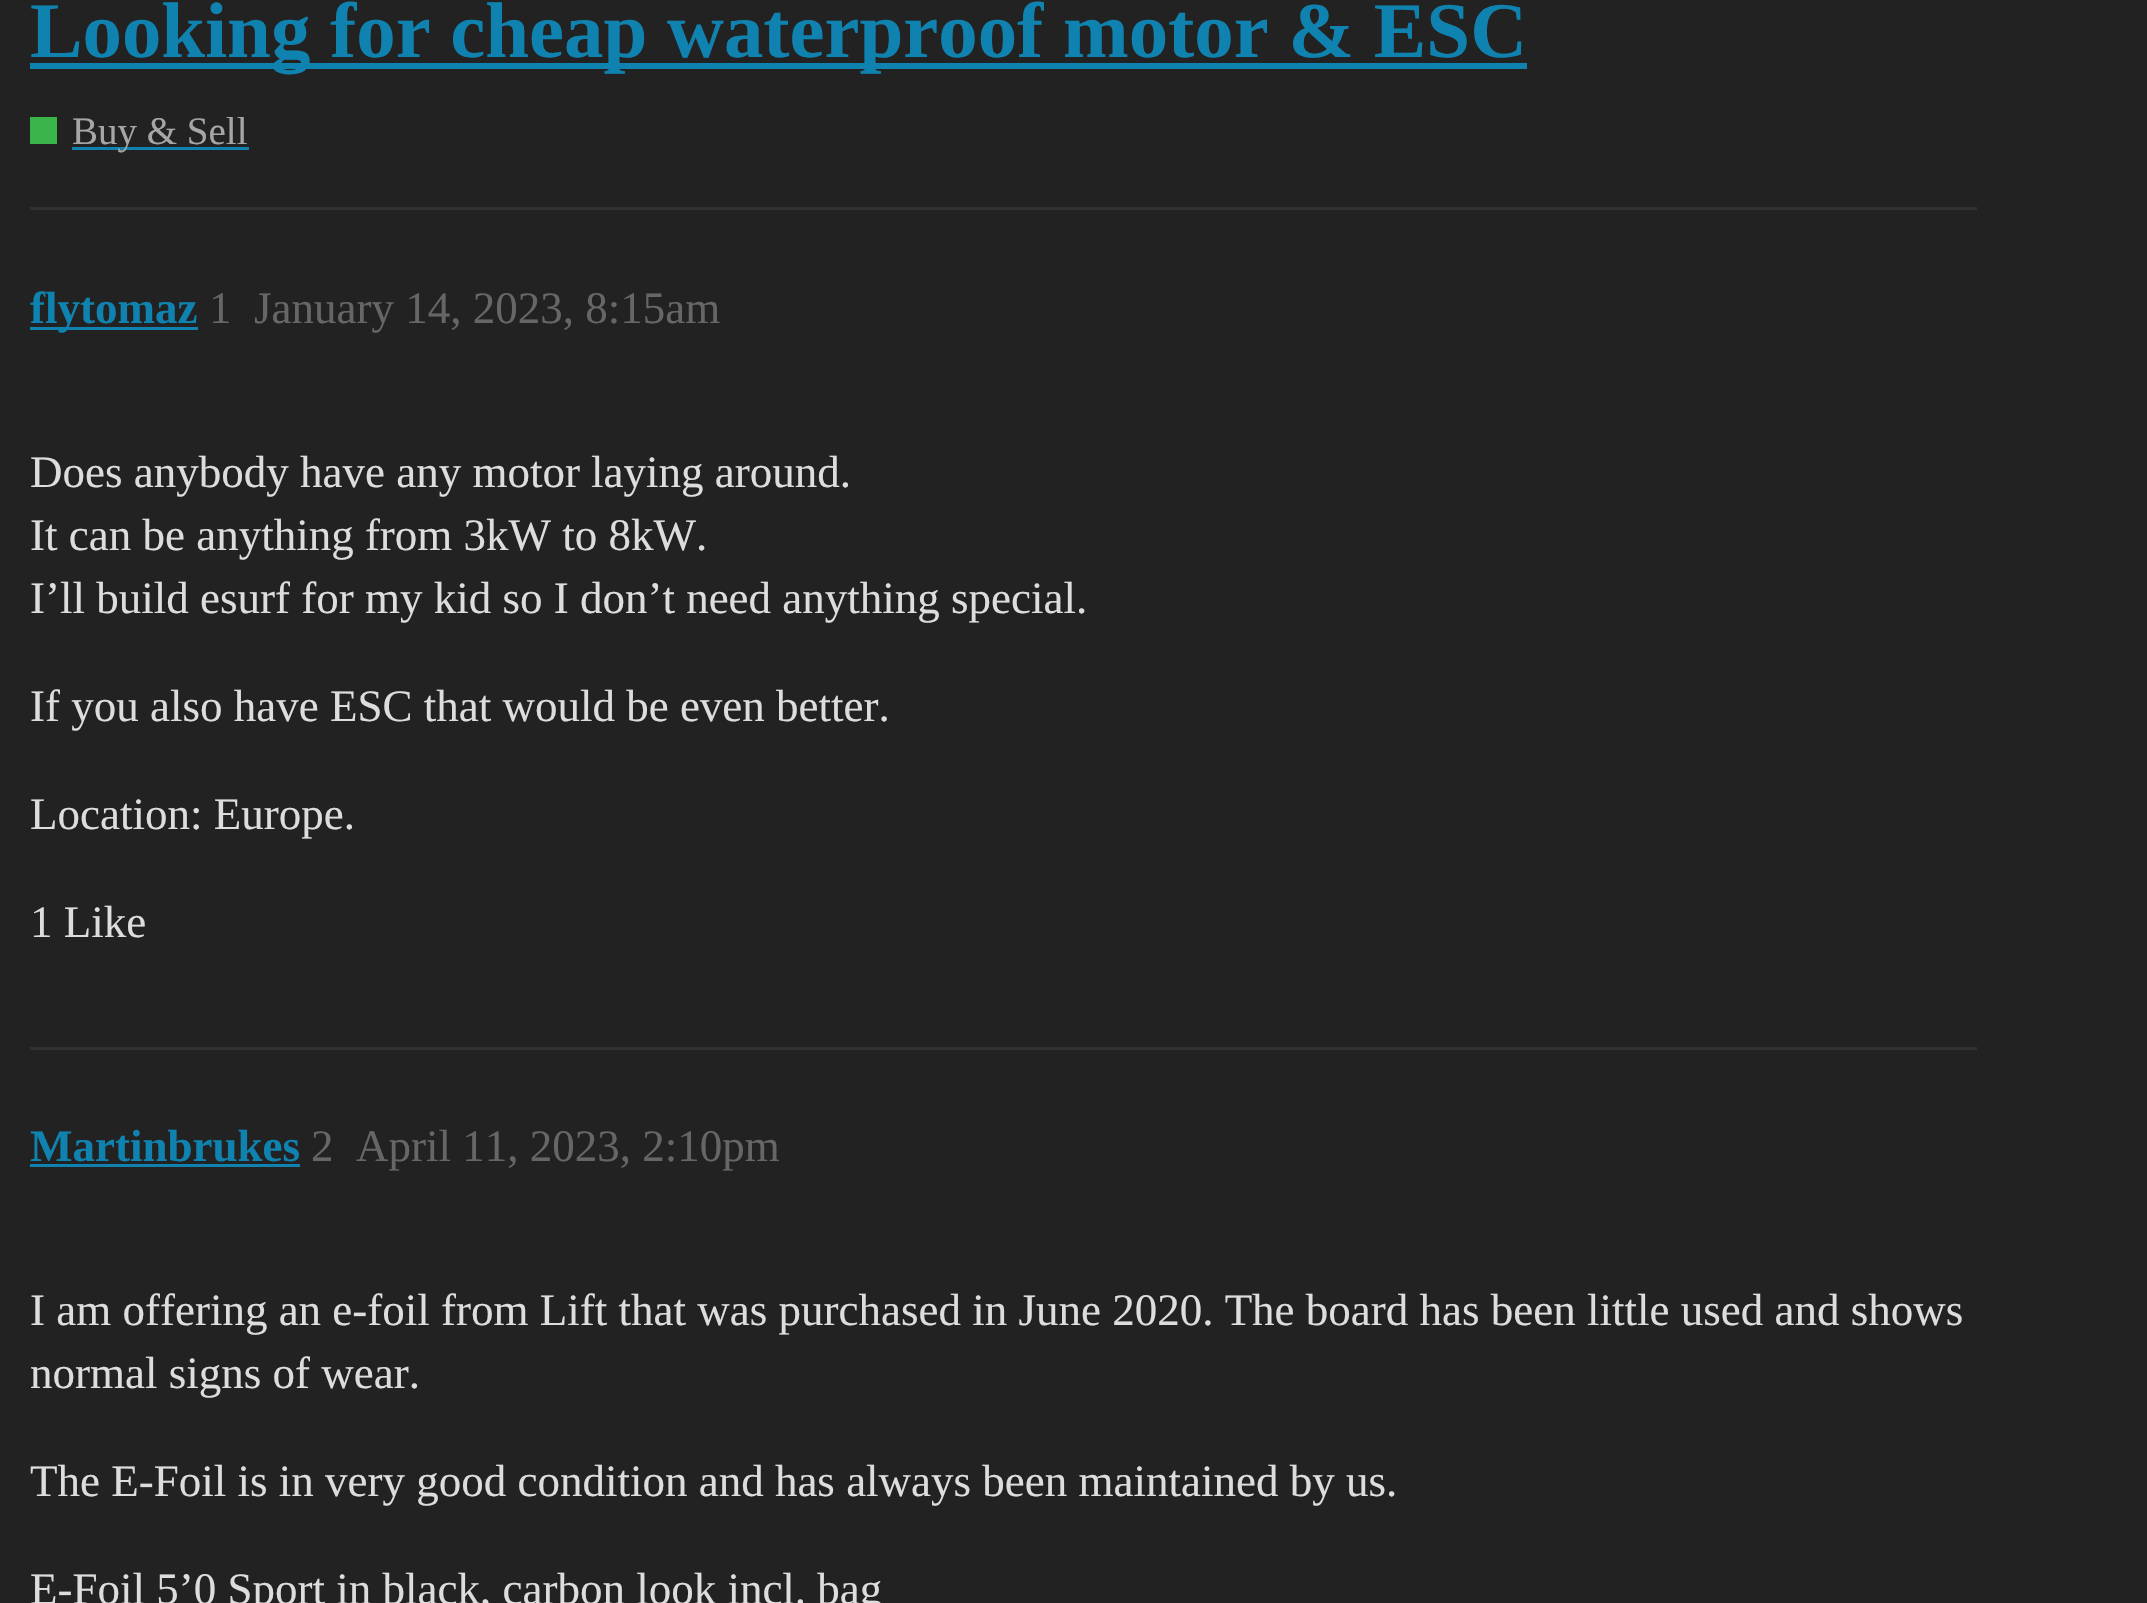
void draw(SkCanvas* canvas) {
    SkPaint paint;
    paint.setAntiAlias(true);
    canvas->clear(0xFF222222);
    paint.setColor(0xFF0F82AF);
    canvas->drawRect(SkRect::MakeXYWH(30, 63, 1497, 6), paint);
    SkFont font1(fontMgr->matchFamilyStyle("Liberation Serif", SkFontStyle::Bold()), 78.8f);
    font1.setSubpixel(true);
    canvas->drawString("Looking for cheap waterproof motor & ESC", 30, 57, font1, paint);
    paint.setColor(0xFF3AB54A);
    canvas->drawRect(SkRect::MakeXYWH(30, 117, 27, 27), paint);
    paint.setColor(0xFF0F82AF);
    canvas->drawRect(SkRect::MakeXYWH(72, 147, 177, 3), paint);
    SkFont font2(fontMgr->matchFamilyStyle("Liberation Serif", SkFontStyle::Normal()), 39);
    font2.setSubpixel(true);
    paint.setColor(0xFFA6A6A6);
    canvas->drawString("Buy & Sell", 72, 144, font2, paint);
    paint.setColor(0xFF313131);
    canvas->drawRect(SkRect::MakeXYWH(30, 207, 1947, 3), paint);
    paint.setColor(0xFF0F82AF);
    canvas->drawRect(SkRect::MakeXYWH(30, 327, 168, 3), paint);
    SkFont font3(fontMgr->matchFamilyStyle("Liberation Serif", SkFontStyle::Bold()), 45);
    font3.setSubpixel(true);
    canvas->drawString("flytomaz", 30, 323, font3, paint);
    SkFont font4(fontMgr->matchFamilyStyle("Liberation Serif", SkFontStyle::Normal()), 45);
    font4.setSubpixel(true);
    paint.setColor(0xFF666666);
    canvas->drawString("1", 209, 323, font4, paint);
    canvas->drawString("January 14, 2023, 8:15am", 254, 323, font4, paint);
    paint.setColor(0xFFDDDDDD);
    canvas->drawString("Does anybody have any motor laying around.", 30, 487, font4, paint);
    canvas->drawString("It can be anything from 3kW to 8kW.", 30, 550, font4, paint);
    canvas->drawString("I’ll build esurf for my kid so I don’t need anything special.", 30, 613, font4, paint);
    canvas->drawString("If you also have ESC that would be even better.", 30, 721, font4, paint);
    canvas->drawString("Location: Europe.", 30, 829, font4, paint);
    canvas->drawString("1 Like", 30, 937, font4, paint);
    paint.setColor(0xFF313131);
    canvas->drawRect(SkRect::MakeXYWH(30, 1047, 1947, 3), paint);
    paint.setColor(0xFF0F82AF);
    canvas->drawString("Martinbrukes", 30, 1161, font3, paint);
    canvas->drawRect(SkRect::MakeXYWH(30, 1164, 270, 3), paint);
    paint.setColor(0xFF666666);
    canvas->drawString("2", 311, 1161, font4, paint);
    canvas->drawString("April 11, 2023, 2:10pm", 356, 1161, font4, paint);
    paint.setColor(0xFFDDDDDD);
    canvas->drawString("I am offering an e-foil from Lift that was purchased in June 2020. The board has been little used and shows", 30, 1325, font4, paint);
    canvas->drawString("normal signs of wear.", 30, 1388, font4, paint);
    canvas->drawString("The E-Foil is in very good condition and has always been maintained by us.", 30, 1496, font4, paint);
    canvas->drawString("E-Foil 5’0 Sport in black, carbon look incl. bag", 30, 1604, font4, paint);
}
